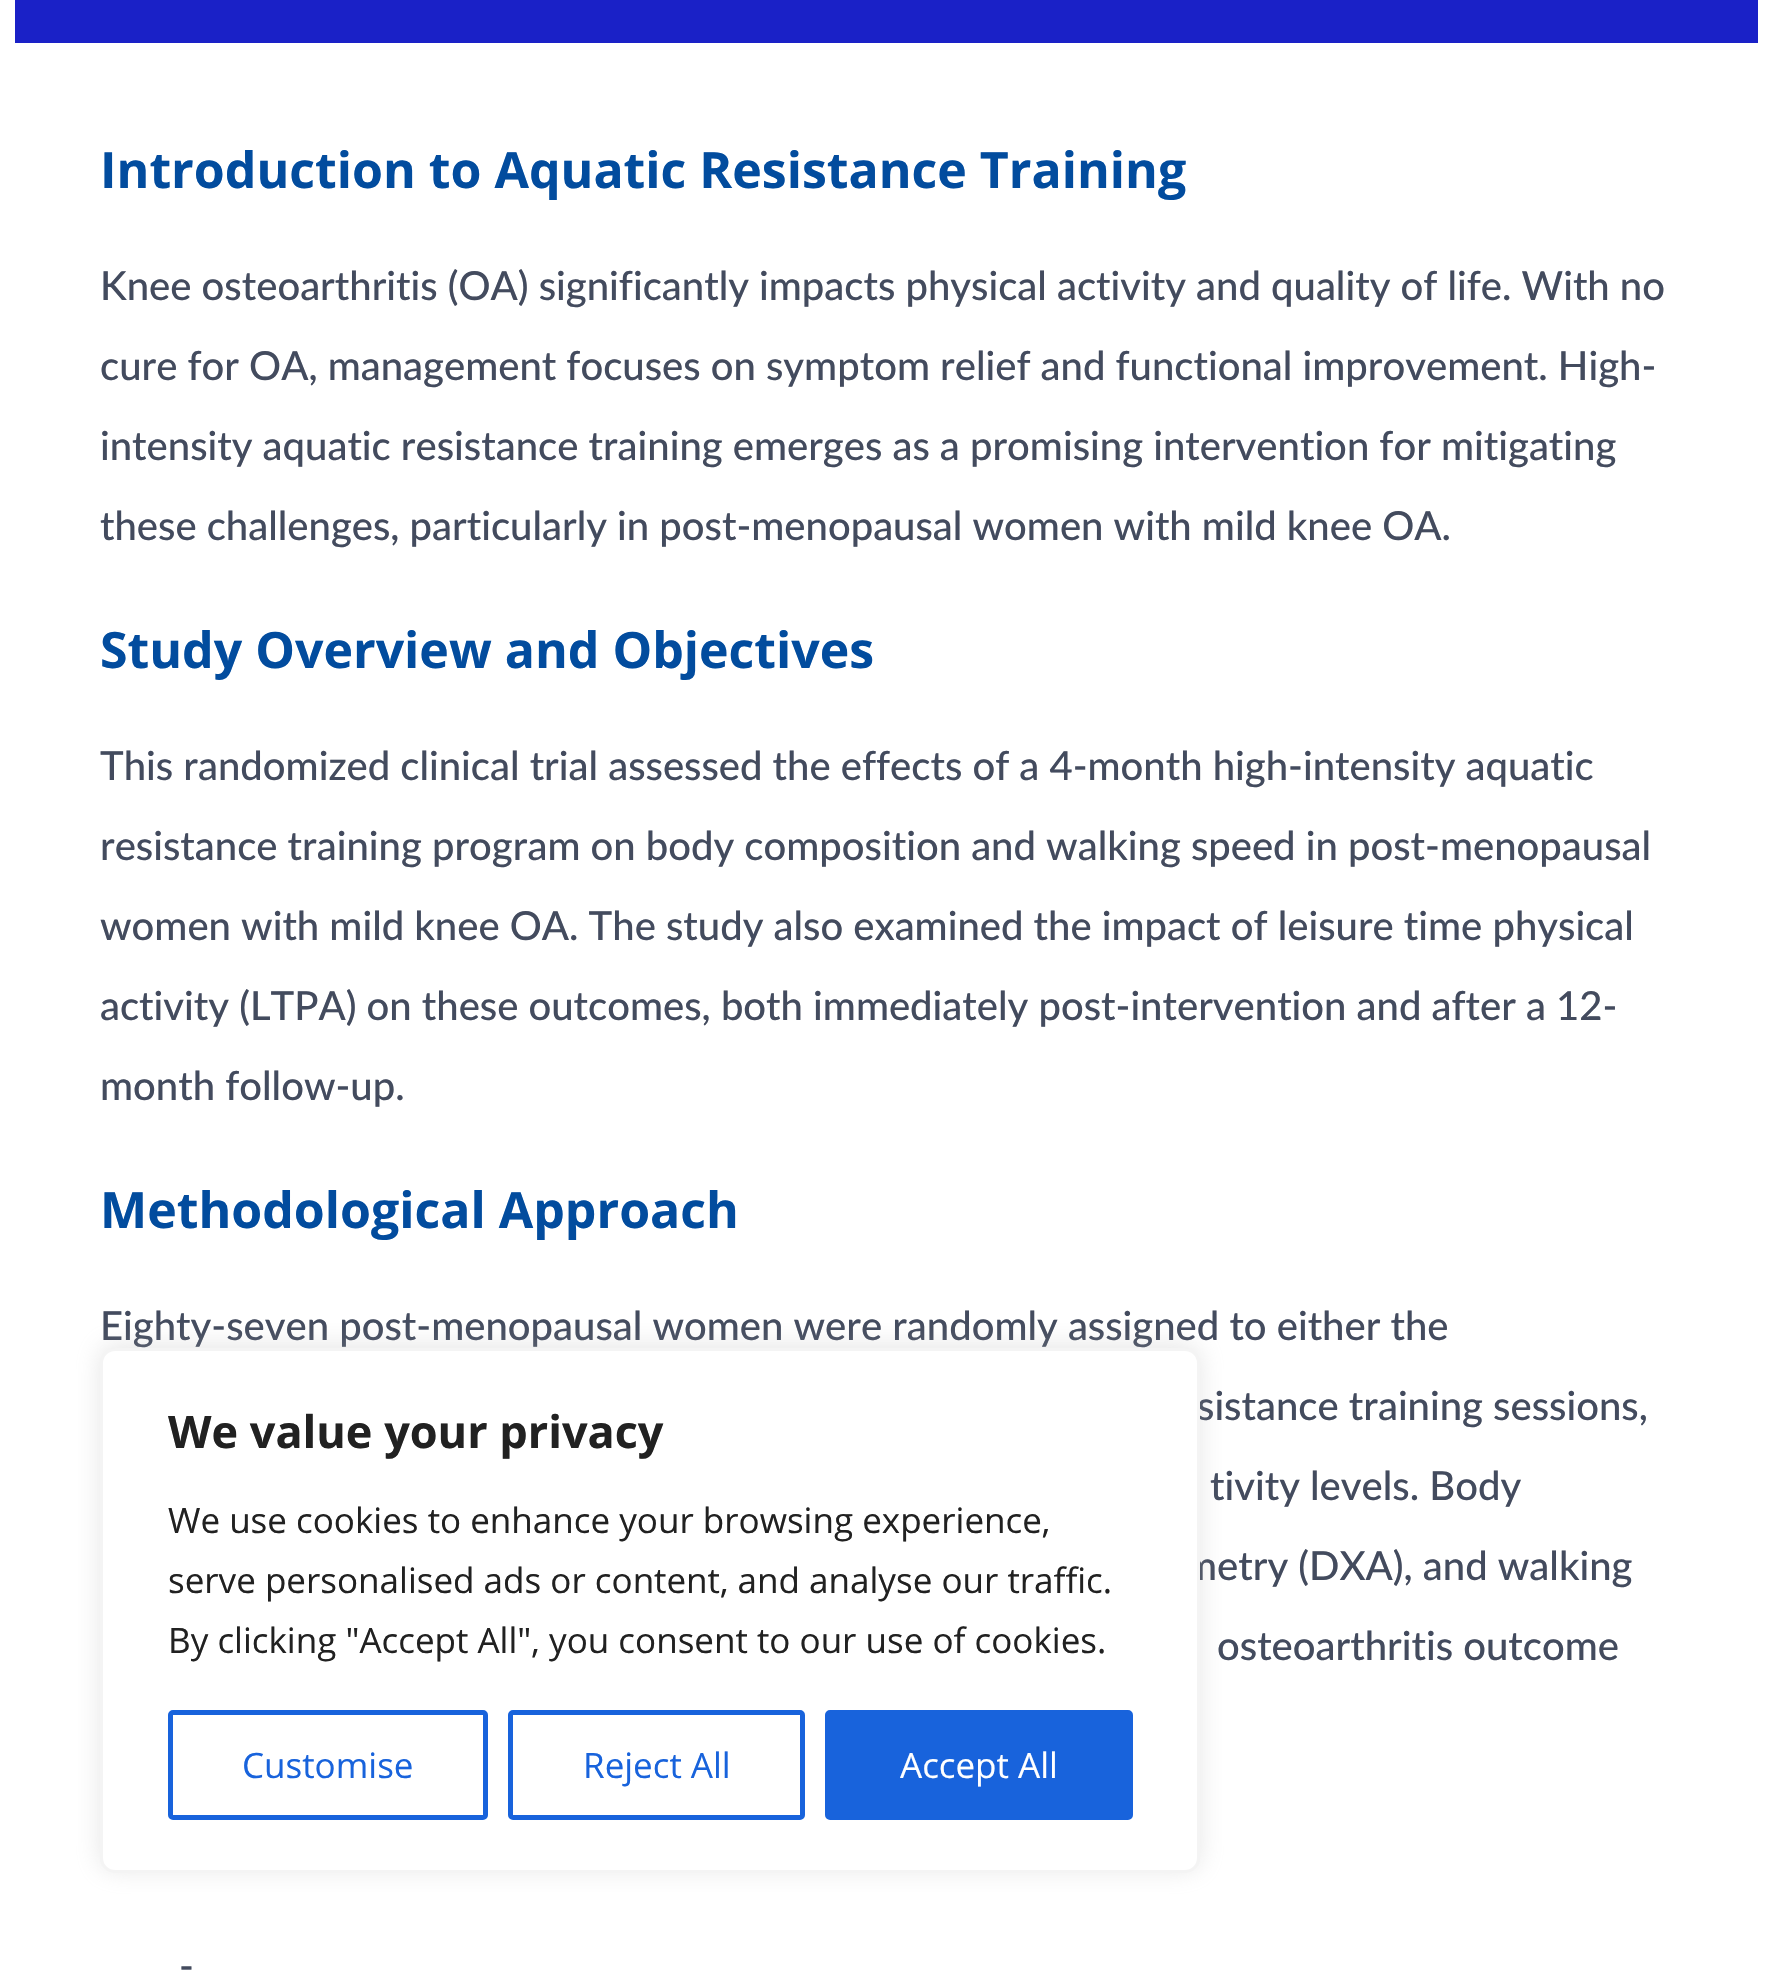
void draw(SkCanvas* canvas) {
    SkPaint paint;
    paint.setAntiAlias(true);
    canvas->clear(0xFFFFFFFF);
    paint.setColor(0xFF1A21C7);
    canvas->drawRect(SkRect::MakeXYWH(15, 0, 1743, 43), paint);
    SkFont font1(fontMgr->matchFamilyStyle("Open Sans", SkFontStyle::Bold()), 50);
    font1.setSubpixel(true);
    paint.setColor(0xFF024C9E);
    canvas->drawString("Introduction to Aquatic Resistance Training", 100, 188, font1, paint);
    SkFont font2(fontMgr->matchFamilyStyle("Lato", SkFontStyle(500, SkFontStyle::kNormal_Width, SkFontStyle::kUpright_Slant)), 40);
    font2.setSubpixel(true);
    paint.setColor(0xFF434B5E);
    canvas->drawString("Knee osteoarthritis (OA) significantly impacts physical activity and quality of life. With no", 100, 300, font2, paint);
    canvas->drawString("cure for OA, management focuses on symptom relief and functional improvement. High-", 100, 380, font2, paint);
    canvas->drawString("intensity aquatic resistance training emerges as a promising intervention for mitigating", 100, 460, font2, paint);
    canvas->drawString("these challenges, particularly in post-menopausal women with mild knee OA.", 100, 540, font2, paint);
    paint.setColor(0xFF024C9E);
    canvas->drawString("Study Overview and Objectives", 100, 668, font1, paint);
    paint.setColor(0xFF434B5E);
    canvas->drawString("This randomized clinical trial assessed the effects of a 4-month high-intensity aquatic", 100, 780, font2, paint);
    canvas->drawString("resistance training program on body composition and walking speed in post-menopausal", 100, 860, font2, paint);
    canvas->drawString("women with mild knee OA. The study also examined the impact of leisure time physical", 100, 940, font2, paint);
    canvas->drawString("activity (LTPA) on these outcomes, both immediately post-intervention and after a 12-", 100, 1020, font2, paint);
    canvas->drawString("month follow-up.", 100, 1100, font2, paint);
    paint.setColor(0xFF024C9E);
    canvas->drawString("Methodological Approach", 100, 1228, font1, paint);
    paint.setColor(0xFF434B5E);
    canvas->drawString("Eighty-seven post-menopausal women were randomly assigned to either the", 100, 1340, font2, paint);
    canvas->drawString("sistance training sessions,", 1197, 1420, font2, paint);
    canvas->drawString("tivity levels. Body", 1210, 1500, font2, paint);
    canvas->drawString("metry (DXA), and walking", 1184, 1580, font2, paint);
    canvas->drawString("osteoarthritis outcome", 1217, 1660, font2, paint);
    canvas->drawString("-", 179, 1980, font2, paint);
    paint.setColor(0x4DACABAB);
    paint.setMaskFilter(SkMaskFilter::MakeBlur(kNormal_SkBlurStyle, 12.5f));
    canvas->drawRoundRect(SkRect::MakeXYWH(100, 1345, 1100, 525), 15, 15, paint);
    paint.setMaskFilter(nullptr);
    paint.setColor(0xFFFFFFFF);
    canvas->drawRoundRect(SkRect::MakeXYWH(101.5f, 1349.5f, 1097, 522), 13.5f, 13.5f, paint);
    paint.setStyle(SkPaint::kStroke_Style);
    paint.setStrokeWidth(3);
    paint.setColor(0xFFF4F4F4);
    canvas->drawRoundRect(SkRect::MakeXYWH(101.5f, 1349.5f, 1097, 522), 13.5f, 13.5f, paint);
    SkFont font3(fontMgr->matchFamilyStyle("Open Sans", SkFontStyle::Bold()), 45);
    font3.setSubpixel(true);
    paint.setStyle(SkPaint::kFill_Style);
    paint.setColor(0xFF212121);
    canvas->drawString("We value your privacy", 168, 1448, font3, paint);
    SkFont font4(fontMgr->matchFamilyStyle("Open Sans", SkFontStyle::Normal()), 35);
    font4.setSubpixel(true);
    canvas->drawString("We use cookies to enhance your browsing experience,", 168, 1533, font4, paint);
    canvas->drawString("serve personalised ads or content, and analyse our traffic.", 168, 1593, font4, paint);
    canvas->drawString("By clicking \"Accept All\", you consent to our use of cookies.", 168, 1653, font4, paint);
    paint.setStyle(SkPaint::kStroke_Style);
    paint.setStrokeWidth(5);
    paint.setColor(0xFF1863DC);
    canvas->drawRoundRect(SkRect::MakeXYWH(170.5f, 1712.5f, 315, 105), 2.5f, 2.5f, paint);
    paint.setStyle(SkPaint::kFill_Style);
    canvas->drawString("Customise", 242, 1778, font4, paint);
    paint.setStyle(SkPaint::kStroke_Style);
    canvas->drawRoundRect(SkRect::MakeXYWH(510.5f, 1712.5f, 292, 105), 2.5f, 2.5f, paint);
    paint.setStyle(SkPaint::kFill_Style);
    canvas->drawString("Reject All", 583, 1778, font4, paint);
    canvas->drawRoundRect(SkRect::MakeXYWH(827.5f, 1712.5f, 303, 105), 2.5f, 2.5f, paint);
    paint.setStyle(SkPaint::kStroke_Style);
    canvas->drawRoundRect(SkRect::MakeXYWH(827.5f, 1712.5f, 303, 105), 2.5f, 2.5f, paint);
    paint.setStyle(SkPaint::kFill_Style);
    paint.setColor(0xFFFFFFFF);
    canvas->drawString("Accept All", 900, 1778, font4, paint);
}
